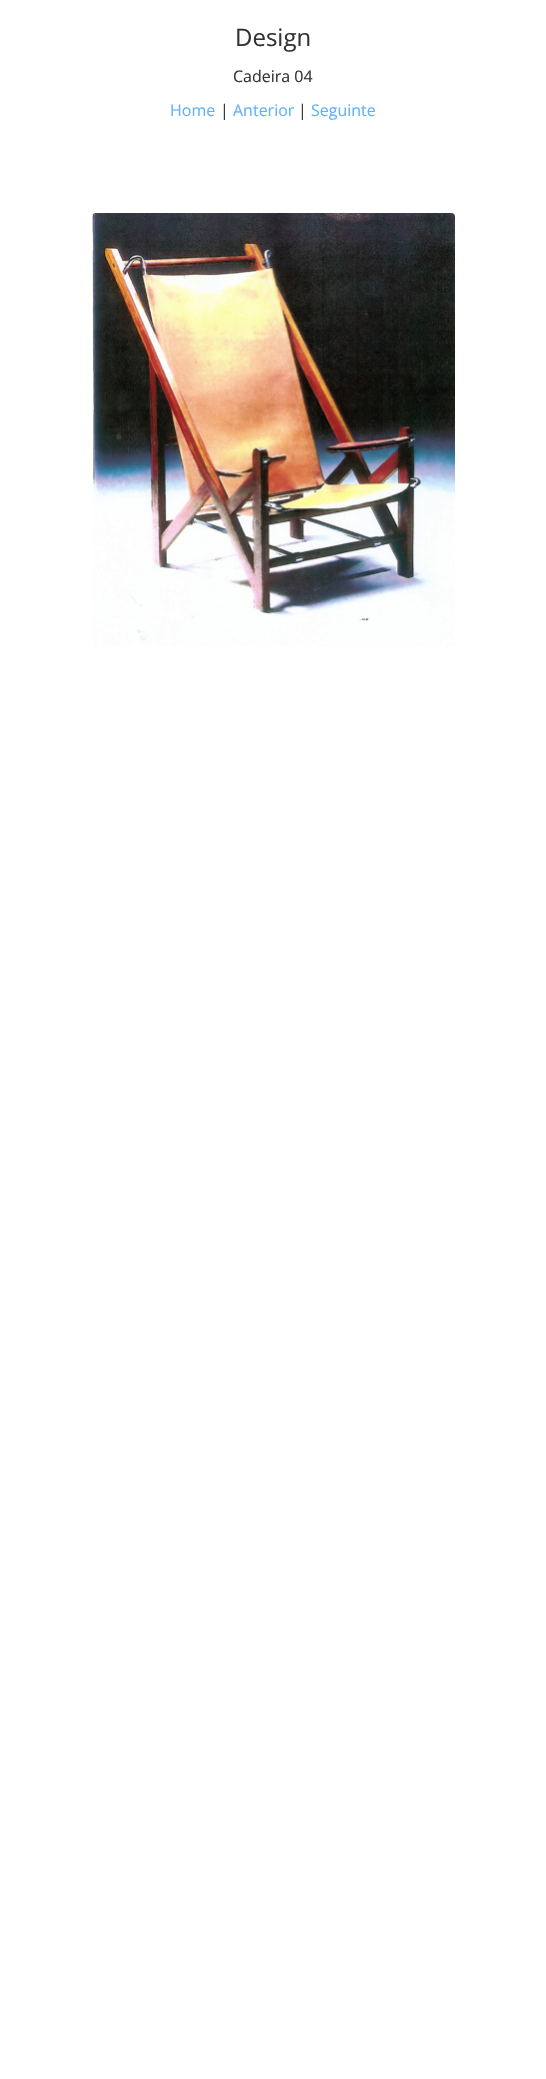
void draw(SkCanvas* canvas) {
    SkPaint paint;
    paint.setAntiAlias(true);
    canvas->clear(0xFFFFFFFF);
    SkFont font1(fontMgr->matchFamilyStyle("Open Sans", SkFontStyle::Normal()), 24);
    font1.setSubpixel(true);
    paint.setColor(0xFF333333);
    canvas->drawString("Design", 235, 46, font1, paint);
    SkFont font2(fontMgr->matchFamilyStyle("Open Sans", SkFontStyle::Normal()), 16);
    font2.setSubpixel(true);
    canvas->drawString("Cadeira 04", 233, 82, font2, paint);
    paint.setColor(0xFF5FB1FC);
    canvas->drawString("Home", 170, 116, font2, paint);
    paint.setColor(0xFF333333);
    canvas->drawString("|", 220, 116, font2, paint);
    paint.setColor(0xFF5FB1FC);
    canvas->drawString("Anterior", 233, 116, font2, paint);
    paint.setColor(0xFF333333);
    canvas->drawString("|", 298, 116, font2, paint);
    paint.setColor(0xFF5FB1FC);
    canvas->drawString("Seguinte", 311, 116, font2, paint);
    canvas->drawImageRect(SkImages::DeferredFromEncodedData(SkData::MakeFromFileName("img1.png")), SkRect::MakeXYWH(92, 213, 363, 434), SkSamplingOptions());
}
